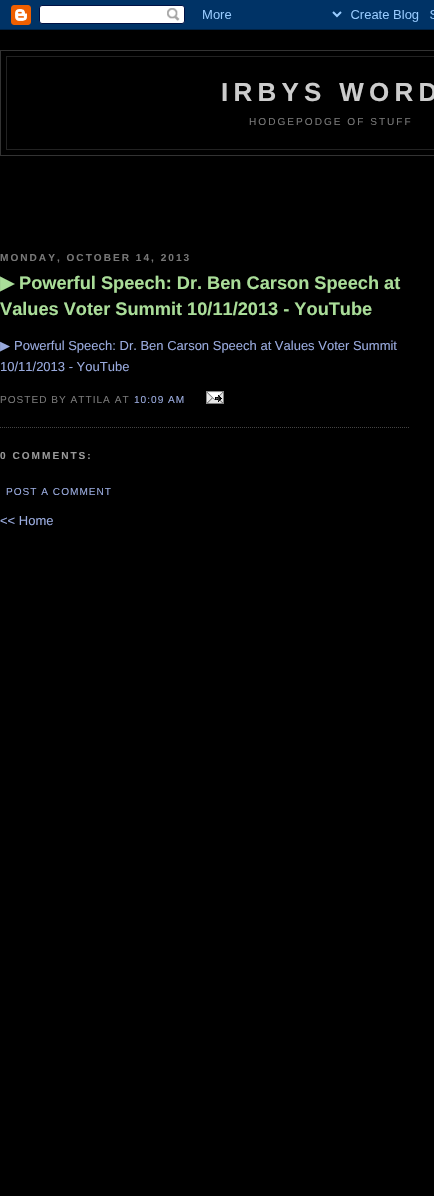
void draw(SkCanvas* canvas) {
    SkPaint paint;
    paint.setAntiAlias(true);
    auto spacedText = [&](const char* s, float x, float y, const SkFont& font, const SkPaint& ink, float letter, float word) {
        std::vector<SkGlyphID> glyphs(font.countText(s, strlen(s), SkTextEncoding::kUTF8));
        std::vector<float> xs(glyphs.size());
        font.textToGlyphs(s, strlen(s), SkTextEncoding::kUTF8, glyphs);
        font.getXPos(glyphs, xs, x);
        float extra = 0;
        for (size_t i = 0; i < glyphs.size(); i++) {
            xs[i] += extra;
            extra += letter + word * (glyphs[i] == font.unicharToGlyph(' '));
        }
        canvas->drawTextBlob(SkTextBlob::MakeFromPosHGlyphs(glyphs, xs, y, font), 0, 0, ink);
    };
    canvas->clear(0xFF000000);
    canvas->drawImageRect(SkImages::DeferredFromEncodedData(SkData::MakeFromFileName("img1.png")), SkRect::MakeXYWH(0, 0, 434, 30), SkSamplingOptions());
    paint.setStyle(SkPaint::kStroke_Style);
    paint.setStrokeWidth(1);
    paint.setColor(0xFF333333);
    canvas->drawRect(SkRect::MakeXYWH(0.5f, 50.5f, 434, 105), paint);
    paint.setStyle(SkPaint::kFill_Style);
    paint.setColor(0xFF222222);
    canvas->drawRect(SkRect::MakeXYWH(6, 56, 428, 1), paint);
    canvas->drawRect(SkRect::MakeXYWH(6, 56, 1, 59), paint);
    SkFont font1(fontMgr->matchFamilyStyle("Liberation Sans", SkFontStyle::Bold()), 26);
    font1.setSubpixel(true);
    paint.setColor(0xFFCCCCCC);
    spacedText("IRBYS WORD", 221, 101, font1, paint, 5.25f, 0);
    paint.setColor(0xFF222222);
    canvas->drawRect(SkRect::MakeXYWH(6, 149, 428, 1), paint);
    canvas->drawRect(SkRect::MakeXYWH(6, 115, 1, 35), paint);
    SkFont font2(fontMgr->matchFamilyStyle("Liberation Sans", SkFontStyle::Normal()), 10.1f);
    font2.setSubpixel(true);
    paint.setColor(0xFF777777);
    spacedText("HODGEPODGE OF STUFF", 249, 125, font2, paint, 2, 0);
    SkFont font3(fontMgr->matchFamilyStyle("Liberation Sans", SkFontStyle::Bold()), 10.1f);
    font3.setSubpixel(true);
    spacedText("MONDAY, OCTOBER 14, 2013", 0, 261, font3, paint, 2, 0);
    paint.setStyle(SkPaint::kStroke_Style);
    paint.setColor(0xFF444444);
    paint.setPathEffect(SkDashPathEffect::Make({{1, 1}}, 0));
    canvas->drawPath(SkPathBuilder().moveTo(0, 427.5f).lineTo(410, 427.5f).detach(), paint);
    paint.setPathEffect(nullptr);
    SkFont font4(fontMgr->matchFamilyStyle("DejaVu Sans", SkFontStyle::Bold()), 18.2f);
    font4.setSubpixel(true);
    paint.setStyle(SkPaint::kFill_Style);
    paint.setColor(0xFFAADD99);
    canvas->drawString("▶", 0, 289, font4, paint);
    SkFont font5(fontMgr->matchFamilyStyle("Liberation Sans", SkFontStyle::Bold()), 18.2f);
    font5.setSubpixel(true);
    canvas->drawString("Powerful Speech: Dr. Ben Carson Speech at", 19, 289, font5, paint);
    canvas->drawString("Values Voter Summit 10/11/2013 - YouTube", 0, 315, font5, paint);
    SkFont font6(fontMgr->matchFamilyStyle("DejaVu Sans", SkFontStyle::Normal()), 13);
    font6.setSubpixel(true);
    paint.setColor(0xFF99AADD);
    canvas->drawString("▶", 0, 350, font6, paint);
    SkFont font7(fontMgr->matchFamilyStyle("Liberation Sans", SkFontStyle::Normal()), 13);
    font7.setSubpixel(true);
    canvas->drawString("Powerful Speech: Dr. Ben Carson Speech at Values Voter Summit", 14, 350, font7, paint);
    canvas->drawString("10/11/2013 - YouTube", 0, 371, font7, paint);
    paint.setColor(0xFF777777);
    spacedText("POSTED BY ATTILA AT", 0, 403, font2, paint, 1, 0);
    paint.setColor(0xFF99AADD);
    spacedText("10:09 AM", 134, 403, font2, paint, 1, 0);
    canvas->drawImageRect(SkImages::DeferredFromEncodedData(SkData::MakeFromFileName("img2.png")), SkRect::MakeXYWH(206, 391, 18, 13), SkSamplingOptions());
    paint.setColor(0xFF999999);
    spacedText("0 COMMENTS:", 0, 459, font3, paint, 2, 0);
    paint.setColor(0xFF99AADD);
    spacedText("POST A COMMENT", 6, 495, font2, paint, 1, 0);
    canvas->drawString("<< Home", 0, 525, font7, paint);
}
